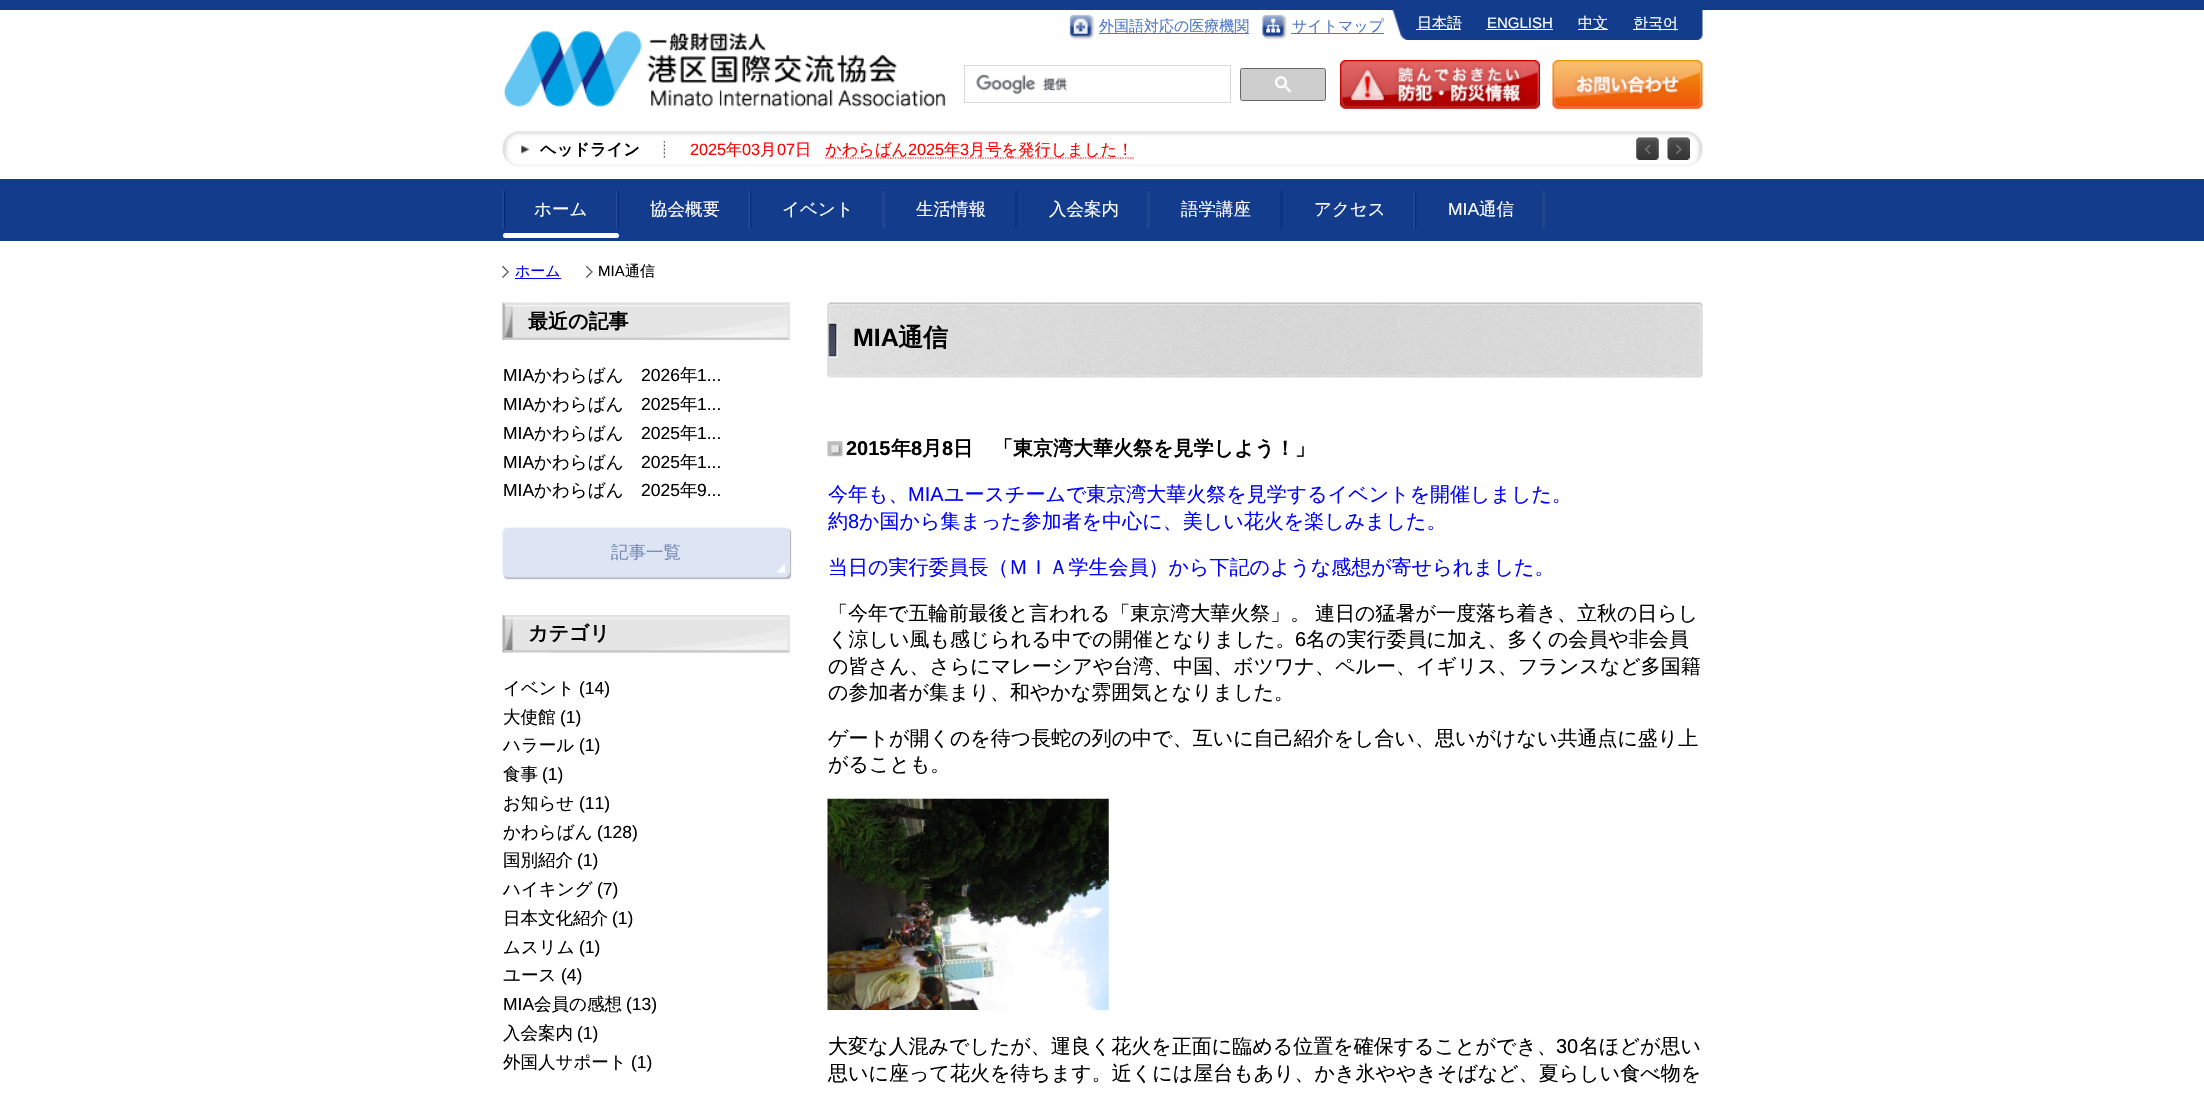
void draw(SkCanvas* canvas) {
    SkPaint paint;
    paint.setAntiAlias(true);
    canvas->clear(0xFFFFFFFF);
    paint.setColor(0xFF143C8C);
    canvas->drawRect(SkRect::MakeXYWH(0, 0, 2204, 10), paint);
    canvas->drawImageRect(SkImages::DeferredFromEncodedData(SkData::MakeFromFileName("img1.png")), SkRect::MakeXYWH(1069, 14, 26, 26), SkSamplingOptions());
    SkFont font1(fontMgr->matchFamilyStyle("WenQuanYi Zen Hei", SkFontStyle(500, SkFontStyle::kNormal_Width, SkFontStyle::kUpright_Slant)), 15);
    font1.setSubpixel(true);
    paint.setColor(0xFF5078C8);
    canvas->drawString("外国語対応の医療機関", 1099, 31, font1, paint);
    canvas->drawRect(SkRect::MakeXYWH(1099, 33, 150, 1), paint);
    canvas->drawImageRect(SkImages::DeferredFromEncodedData(SkData::MakeFromFileName("img2.png")), SkRect::MakeXYWH(1262, 14, 25, 26), SkSamplingOptions());
    canvas->drawRect(SkRect::MakeXYWH(1291, 33, 93, 1), paint);
    canvas->drawString("サイトマップ", 1292, 31, font1, paint);
    canvas->drawImageRect(SkImages::DeferredFromEncodedData(SkData::MakeFromFileName("img3.png")), SkRect::MakeXYWH(1390, 10, 313, 30), SkSamplingOptions());
    paint.setColor(0xFFFFFFFF);
    canvas->drawRect(SkRect::MakeXYWH(1416, 29, 45, 1), paint);
    canvas->drawString("日本語", 1417, 28, font1, paint);
    SkFont font2(fontMgr->matchFamilyStyle("Liberation Sans", SkFontStyle::Normal()), 15);
    font2.setSubpixel(true);
    canvas->drawString("ENGLISH", 1487, 28, font2, paint);
    canvas->drawRect(SkRect::MakeXYWH(1486, 29, 67, 1), paint);
    canvas->drawRect(SkRect::MakeXYWH(1578, 29, 30, 1), paint);
    canvas->drawString("中文", 1578, 28, font1, paint);
    canvas->drawRect(SkRect::MakeXYWH(1633, 29, 45, 1), paint);
    canvas->drawString("한국어", 1633, 28, font1, paint);
    canvas->drawImageRect(SkImages::DeferredFromEncodedData(SkData::MakeFromFileName("img4.png")), SkRect::MakeXYWH(503, 31, 443, 76), SkSamplingOptions());
    paint.setStyle(SkPaint::kStroke_Style);
    paint.setStrokeWidth(1);
    paint.setColor(0xFFD9D9D9);
    canvas->drawRect(SkRect::MakeXYWH(964.5f, 65.5f, 266, 37), paint);
    canvas->drawImageRect(SkImages::DeferredFromEncodedData(SkData::MakeFromFileName("img5.png")), SkRect::MakeXYWH(976, 75, 91, 19), SkSamplingOptions());
    paint.setStyle(SkPaint::kFill_Style);
    paint.setColor(0xFFCECECE);
    canvas->drawRoundRect(SkRect::MakeXYWH(1240.5f, 68.5f, 85, 32), 2, 2, paint);
    paint.setStyle(SkPaint::kStroke_Style);
    paint.setColor(0xFF666666);
    canvas->drawRoundRect(SkRect::MakeXYWH(1240.5f, 68.5f, 85, 32), 2, 2, paint);
    canvas->drawImageRect(SkImages::DeferredFromEncodedData(SkData::MakeFromFileName("img6.png")), SkRect::MakeXYWH(1275, 76, 16, 17), SkSamplingOptions());
    canvas->drawImageRect(SkImages::DeferredFromEncodedData(SkData::MakeFromFileName("img7.png")), SkRect::MakeXYWH(1340, 60, 200, 49), SkSamplingOptions());
    canvas->drawImageRect(SkImages::DeferredFromEncodedData(SkData::MakeFromFileName("img8.png")), SkRect::MakeXYWH(1552, 60, 151, 49), SkSamplingOptions());
    canvas->drawImageRect(SkImages::DeferredFromEncodedData(SkData::MakeFromFileName("img9.png")), SkRect::MakeXYWH(502, 131, 163, 36), SkSamplingOptions());
    SkFont font3(fontMgr->matchFamilyStyle("WenQuanYi Zen Hei", SkFontStyle::Bold()), 16.25f);
    font3.setSubpixel(true);
    paint.setStyle(SkPaint::kFill_Style);
    paint.setColor(0xFF000000);
    canvas->drawString("ヘッドライン", 540, 155, font3, paint);
    canvas->drawImageRect(SkImages::DeferredFromEncodedData(SkData::MakeFromFileName("img10.png")), SkRect::MakeXYWH(665, 131, 1038, 36), SkSamplingOptions());
    SkFont font4(fontMgr->matchFamilyStyle("Liberation Sans", SkFontStyle::Normal()), 16.25f);
    font4.setSubpixel(true);
    paint.setColor(0xFFFF0000);
    canvas->drawString("2025", 690, 155, font4, paint);
    SkFont font5(fontMgr->matchFamilyStyle("WenQuanYi Zen Hei", SkFontStyle(500, SkFontStyle::kNormal_Width, SkFontStyle::kUpright_Slant)), 16.25f);
    font5.setSubpixel(true);
    canvas->drawString("年", 726, 155, font5, paint);
    canvas->drawString("03", 742, 155, font4, paint);
    canvas->drawString("月", 760, 155, font5, paint);
    canvas->drawString("07", 777, 155, font4, paint);
    canvas->drawString("日", 795, 155, font5, paint);
    paint.setStyle(SkPaint::kStroke_Style);
    paint.setStrokeWidth(1.2f);
    paint.setPathEffect(SkDashPathEffect::Make({{1.25f, 1.25f}}, 0));
    canvas->drawPath(SkPathBuilder().moveTo(825, 158).lineTo(1134, 158).detach(), paint);
    paint.setPathEffect(nullptr);
    paint.setStyle(SkPaint::kFill_Style);
    canvas->drawString("かわらばん", 825, 155, font5, paint);
    canvas->drawString("2025", 908, 155, font4, paint);
    canvas->drawString("年", 944, 155, font5, paint);
    canvas->drawString("3", 960, 155, font4, paint);
    canvas->drawString("月号を発行しました！", 969, 155, font5, paint);
    canvas->drawImageRect(SkImages::DeferredFromEncodedData(SkData::MakeFromFileName("img11.png")), SkRect::MakeXYWH(1636, 137, 23, 23), SkSamplingOptions());
    canvas->drawImageRect(SkImages::DeferredFromEncodedData(SkData::MakeFromFileName("img12.png")), SkRect::MakeXYWH(1667, 137, 23, 23), SkSamplingOptions());
    paint.setColor(0xFF143C8C);
    canvas->drawRect(SkRect::MakeXYWH(0, 179, 2204, 62), paint);
    paint.setColor(0xFF163C88);
    canvas->drawRect(SkRect::MakeXYWH(616, 191, 3, 38), paint);
    canvas->drawImageRect(SkImages::DeferredFromEncodedData(SkData::MakeFromFileName("img13.png")), SkRect::MakeXYWH(502, 191, 117, 38), SkSamplingOptions());
    SkFont font6(fontMgr->matchFamilyStyle("WenQuanYi Zen Hei", SkFontStyle(500, SkFontStyle::kNormal_Width, SkFontStyle::kUpright_Slant)), 17.5f);
    font6.setSubpixel(true);
    paint.setColor(0xFFFFFFFF);
    canvas->drawString("ホーム", 534, 215, font6, paint);
    canvas->drawImageRect(SkImages::DeferredFromEncodedData(SkData::MakeFromFileName("img14.png")), SkRect::MakeXYWH(748, 191, 4, 38), SkSamplingOptions());
    canvas->drawString("協会概要", 650, 215, font6, paint);
    paint.setColor(0xFF214690);
    canvas->drawRect(SkRect::MakeXYWH(882, 191, 3, 38), paint);
    paint.setColor(0xFFFFFFFF);
    canvas->drawString("イベント", 782, 215, font6, paint);
    paint.setColor(0xFF0D3482);
    canvas->drawRect(SkRect::MakeXYWH(1015, 191, 3, 38), paint);
    paint.setColor(0xFFFFFFFF);
    canvas->drawString("生活情報", 916, 215, font6, paint);
    paint.setColor(0xFF214690);
    canvas->drawRect(SkRect::MakeXYWH(1147, 191, 3, 38), paint);
    paint.setColor(0xFFFFFFFF);
    canvas->drawString("入会案内", 1049, 215, font6, paint);
    paint.setColor(0xFF0D3482);
    canvas->drawRect(SkRect::MakeXYWH(1280, 191, 3, 38), paint);
    paint.setColor(0xFFFFFFFF);
    canvas->drawString("語学講座", 1181, 215, font6, paint);
    canvas->drawImageRect(SkImages::DeferredFromEncodedData(SkData::MakeFromFileName("img14.png")), SkRect::MakeXYWH(1413, 191, 4, 38), SkSamplingOptions());
    canvas->drawString("アクセス", 1314, 215, font6, paint);
    paint.setColor(0xFF214690);
    canvas->drawRect(SkRect::MakeXYWH(1542, 191, 3, 38), paint);
    SkFont font7(fontMgr->matchFamilyStyle("Liberation Sans", SkFontStyle::Normal()), 17.5f);
    font7.setSubpixel(true);
    paint.setColor(0xFFFFFFFF);
    canvas->drawString("MIA", 1448, 215, font7, paint);
    canvas->drawString("通信", 1479, 215, font6, paint);
    canvas->drawRoundRect(SkRect::MakeXYWH(503, 233, 116, 5), 2.5f, 2.5f, paint);
    canvas->drawImageRect(SkImages::DeferredFromEncodedData(SkData::MakeFromFileName("img15.png")), SkRect::MakeXYWH(502, 266, 7, 12), SkSamplingOptions());
    paint.setColor(0xFF0000EE);
    canvas->drawString("ホーム", 515, 276, font1, paint);
    canvas->drawRect(SkRect::MakeXYWH(515, 278, 46, 1), paint);
    canvas->drawImageRect(SkImages::DeferredFromEncodedData(SkData::MakeFromFileName("img16.png")), SkRect::MakeXYWH(586, 266, 7, 12), SkSamplingOptions());
    paint.setColor(0xFF000000);
    canvas->drawString("MIA", 598, 276, font2, paint);
    canvas->drawString("通信", 625, 276, font1, paint);
    canvas->drawImageRect(SkImages::DeferredFromEncodedData(SkData::MakeFromFileName("img17.png")), SkRect::MakeXYWH(502, 302, 288, 38), SkSamplingOptions());
    SkFont font8(fontMgr->matchFamilyStyle("WenQuanYi Zen Hei", SkFontStyle::Bold()), 20);
    font8.setSubpixel(true);
    canvas->drawString("最近の記事", 528, 328, font8, paint);
    canvas->drawString("MIA", 503, 381, font7, paint);
    canvas->drawString("かわらばん", 534, 381, font6, paint);
    canvas->drawString("2026", 641, 381, font7, paint);
    canvas->drawString("年", 680, 381, font6, paint);
    canvas->drawString("1...", 697, 381, font7, paint);
    canvas->drawString("MIA", 503, 410, font7, paint);
    canvas->drawString("かわらばん", 534, 410, font6, paint);
    canvas->drawString("2025", 641, 410, font7, paint);
    canvas->drawString("年", 680, 410, font6, paint);
    canvas->drawString("1...", 697, 410, font7, paint);
    canvas->drawString("MIA", 503, 439, font7, paint);
    canvas->drawString("かわらばん", 534, 439, font6, paint);
    canvas->drawString("2025", 641, 439, font7, paint);
    canvas->drawString("年", 680, 439, font6, paint);
    canvas->drawString("1...", 697, 439, font7, paint);
    canvas->drawString("MIA", 503, 468, font7, paint);
    canvas->drawString("かわらばん", 534, 468, font6, paint);
    canvas->drawString("2025", 641, 468, font7, paint);
    canvas->drawString("年", 680, 468, font6, paint);
    canvas->drawString("1...", 697, 468, font7, paint);
    canvas->drawString("MIA", 503, 496, font7, paint);
    canvas->drawString("かわらばん", 534, 496, font6, paint);
    canvas->drawString("2025", 641, 496, font7, paint);
    canvas->drawString("年", 680, 496, font6, paint);
    canvas->drawString("9...", 697, 496, font7, paint);
    paint.setColor(0x4D000000);
    paint.setMaskFilter(SkMaskFilter::MakeBlur(kNormal_SkBlurStyle, 0.5f));
    canvas->drawRoundRect(SkRect::MakeXYWH(504, 529, 287, 50), 4, 4, paint);
    paint.setMaskFilter(nullptr);
    canvas->drawImageRect(SkImages::DeferredFromEncodedData(SkData::MakeFromFileName("img18.png")), SkRect::MakeXYWH(502, 527, 288, 51), SkSamplingOptions());
    paint.setColor(0xFF788CB4);
    canvas->drawString("記事一覧", 611, 558, font6, paint);
    canvas->drawImageRect(SkImages::DeferredFromEncodedData(SkData::MakeFromFileName("img19.png")), SkRect::MakeXYWH(502, 615, 288, 38), SkSamplingOptions());
    paint.setColor(0xFF000000);
    canvas->drawString("カテゴリ", 528, 640, font8, paint);
    canvas->drawString("イベント", 503, 694, font6, paint);
    canvas->drawString("(14)", 579, 694, font7, paint);
    canvas->drawString("大使館", 503, 723, font6, paint);
    canvas->drawString("(1)", 560, 723, font7, paint);
    canvas->drawString("ハラール", 503, 751, font6, paint);
    canvas->drawString("(1)", 579, 751, font7, paint);
    canvas->drawString("食事", 503, 780, font6, paint);
    canvas->drawString("(1)", 542, 780, font7, paint);
    canvas->drawString("お知らせ", 503, 809, font6, paint);
    canvas->drawString("(11)", 579, 809, font7, paint);
    canvas->drawString("かわらばん", 503, 838, font6, paint);
    canvas->drawString("(128)", 597, 838, font7, paint);
    canvas->drawString("国別紹介", 503, 866, font6, paint);
    canvas->drawString("(1)", 577, 866, font7, paint);
    canvas->drawString("ハイキング", 503, 895, font6, paint);
    canvas->drawString("(7)", 597, 895, font7, paint);
    canvas->drawString("日本文化紹介", 503, 924, font6, paint);
    canvas->drawString("(1)", 612, 924, font7, paint);
    canvas->drawString("ムスリム", 503, 953, font6, paint);
    canvas->drawString("(1)", 579, 953, font7, paint);
    canvas->drawString("ユース", 503, 981, font6, paint);
    canvas->drawString("(4)", 561, 981, font7, paint);
    canvas->drawString("MIA", 503, 1010, font7, paint);
    canvas->drawString("会員の感想", 534, 1010, font6, paint);
    canvas->drawString("(13)", 626, 1010, font7, paint);
    canvas->drawString("入会案内", 503, 1039, font6, paint);
    canvas->drawString("(1)", 577, 1039, font7, paint);
    canvas->drawString("外国人サポート", 503, 1068, font6, paint);
    canvas->drawString("(1)", 631, 1068, font7, paint);
    canvas->drawImageRect(SkImages::DeferredFromEncodedData(SkData::MakeFromFileName("img20.png")), SkRect::MakeXYWH(827, 302, 876, 76), SkSamplingOptions());
    SkFont font9(fontMgr->matchFamilyStyle("Liberation Sans", SkFontStyle::Bold()), 25);
    font9.setSubpixel(true);
    canvas->drawString("MIA", 853, 346, font9, paint);
    SkFont font10(fontMgr->matchFamilyStyle("WenQuanYi Zen Hei", SkFontStyle::Bold()), 25);
    font10.setSubpixel(true);
    canvas->drawString("通信", 898, 346, font10, paint);
    canvas->drawImageRect(SkImages::DeferredFromEncodedData(SkData::MakeFromFileName("img21.png")), SkRect::MakeXYWH(827, 441, 16, 16), SkSamplingOptions());
    SkFont font11(fontMgr->matchFamilyStyle("Liberation Sans", SkFontStyle::Bold()), 20);
    font11.setSubpixel(true);
    canvas->drawString("2015", 846, 455, font11, paint);
    canvas->drawString("年", 891, 455, font8, paint);
    canvas->drawString("8", 911, 455, font11, paint);
    canvas->drawString("月", 922, 455, font8, paint);
    canvas->drawString("8", 942, 455, font11, paint);
    canvas->drawString("日　「東京湾大華火祭を見学しよう！」", 953, 455, font8, paint);
    SkFont font12(fontMgr->matchFamilyStyle("WenQuanYi Zen Hei", SkFontStyle(500, SkFontStyle::kNormal_Width, SkFontStyle::kUpright_Slant)), 20);
    font12.setSubpixel(true);
    paint.setColor(0xFF0000FF);
    canvas->drawString("今年も、", 828, 501, font12, paint);
    SkFont font13(fontMgr->matchFamilyStyle("Liberation Sans", SkFontStyle::Normal()), 20);
    font13.setSubpixel(true);
    canvas->drawString("MIA", 908, 501, font13, paint);
    canvas->drawString("ユースチームで東京湾大華火祭を見学するイベントを開催しました。", 944, 501, font12, paint);
    canvas->drawString("約", 828, 528, font12, paint);
    canvas->drawString("8", 848, 528, font13, paint);
    canvas->drawString("か国から集まった参加者を中心に、美しい花火を楽しみました。", 859, 528, font12, paint);
    canvas->drawString("当日の実行委員長（ＭＩＡ学生会員）から下記のような感想が寄せられました。", 828, 574, font12, paint);
    paint.setColor(0xFF000000);
    canvas->drawString("「今年で五輪前最後と言われる「東京湾大華火祭」。", 828, 620, font12, paint);
    canvas->drawString("連日の猛暑が一度落ち着き、立秋の日らし", 1315, 620, font12, paint);
    canvas->drawString("く涼しい風も感じられる中での開催となりました。", 828, 646, font12, paint);
    canvas->drawString("6", 1295, 646, font13, paint);
    canvas->drawString("名の実行委員に加え、多くの会員や非会員", 1306, 646, font12, paint);
    canvas->drawString("の皆さん、さらにマレーシアや台湾、中国、ボツワナ、ペルー、イギリス、フランスなど多国籍", 828, 673, font12, paint);
    canvas->drawString("の参加者が集まり、和やかな雰囲気となりました。", 828, 699, font12, paint);
    canvas->drawString("ゲートが開くのを待つ長蛇の列の中で、互いに自己紹介をし合い、思いがけない共通点に盛り上", 828, 745, font12, paint);
    canvas->drawString("がることも。", 828, 771, font12, paint);
    canvas->drawImageRect(SkImages::DeferredFromEncodedData(SkData::MakeFromFileName("img22.png")), SkRect::MakeXYWH(827, 798, 282, 212), SkSamplingOptions());
    canvas->drawString("大変な人混みでしたが、運良く花火を正面に臨める位置を確保することができ、", 828, 1053, font12, paint);
    canvas->drawString("30", 1556, 1053, font13, paint);
    canvas->drawString("名ほどが思い", 1579, 1053, font12, paint);
    canvas->drawString("思いに座って花火を待ちます。近くには屋台もあり、かき氷ややきそばなど、夏らしい食べ物を", 828, 1080, font12, paint);
}
